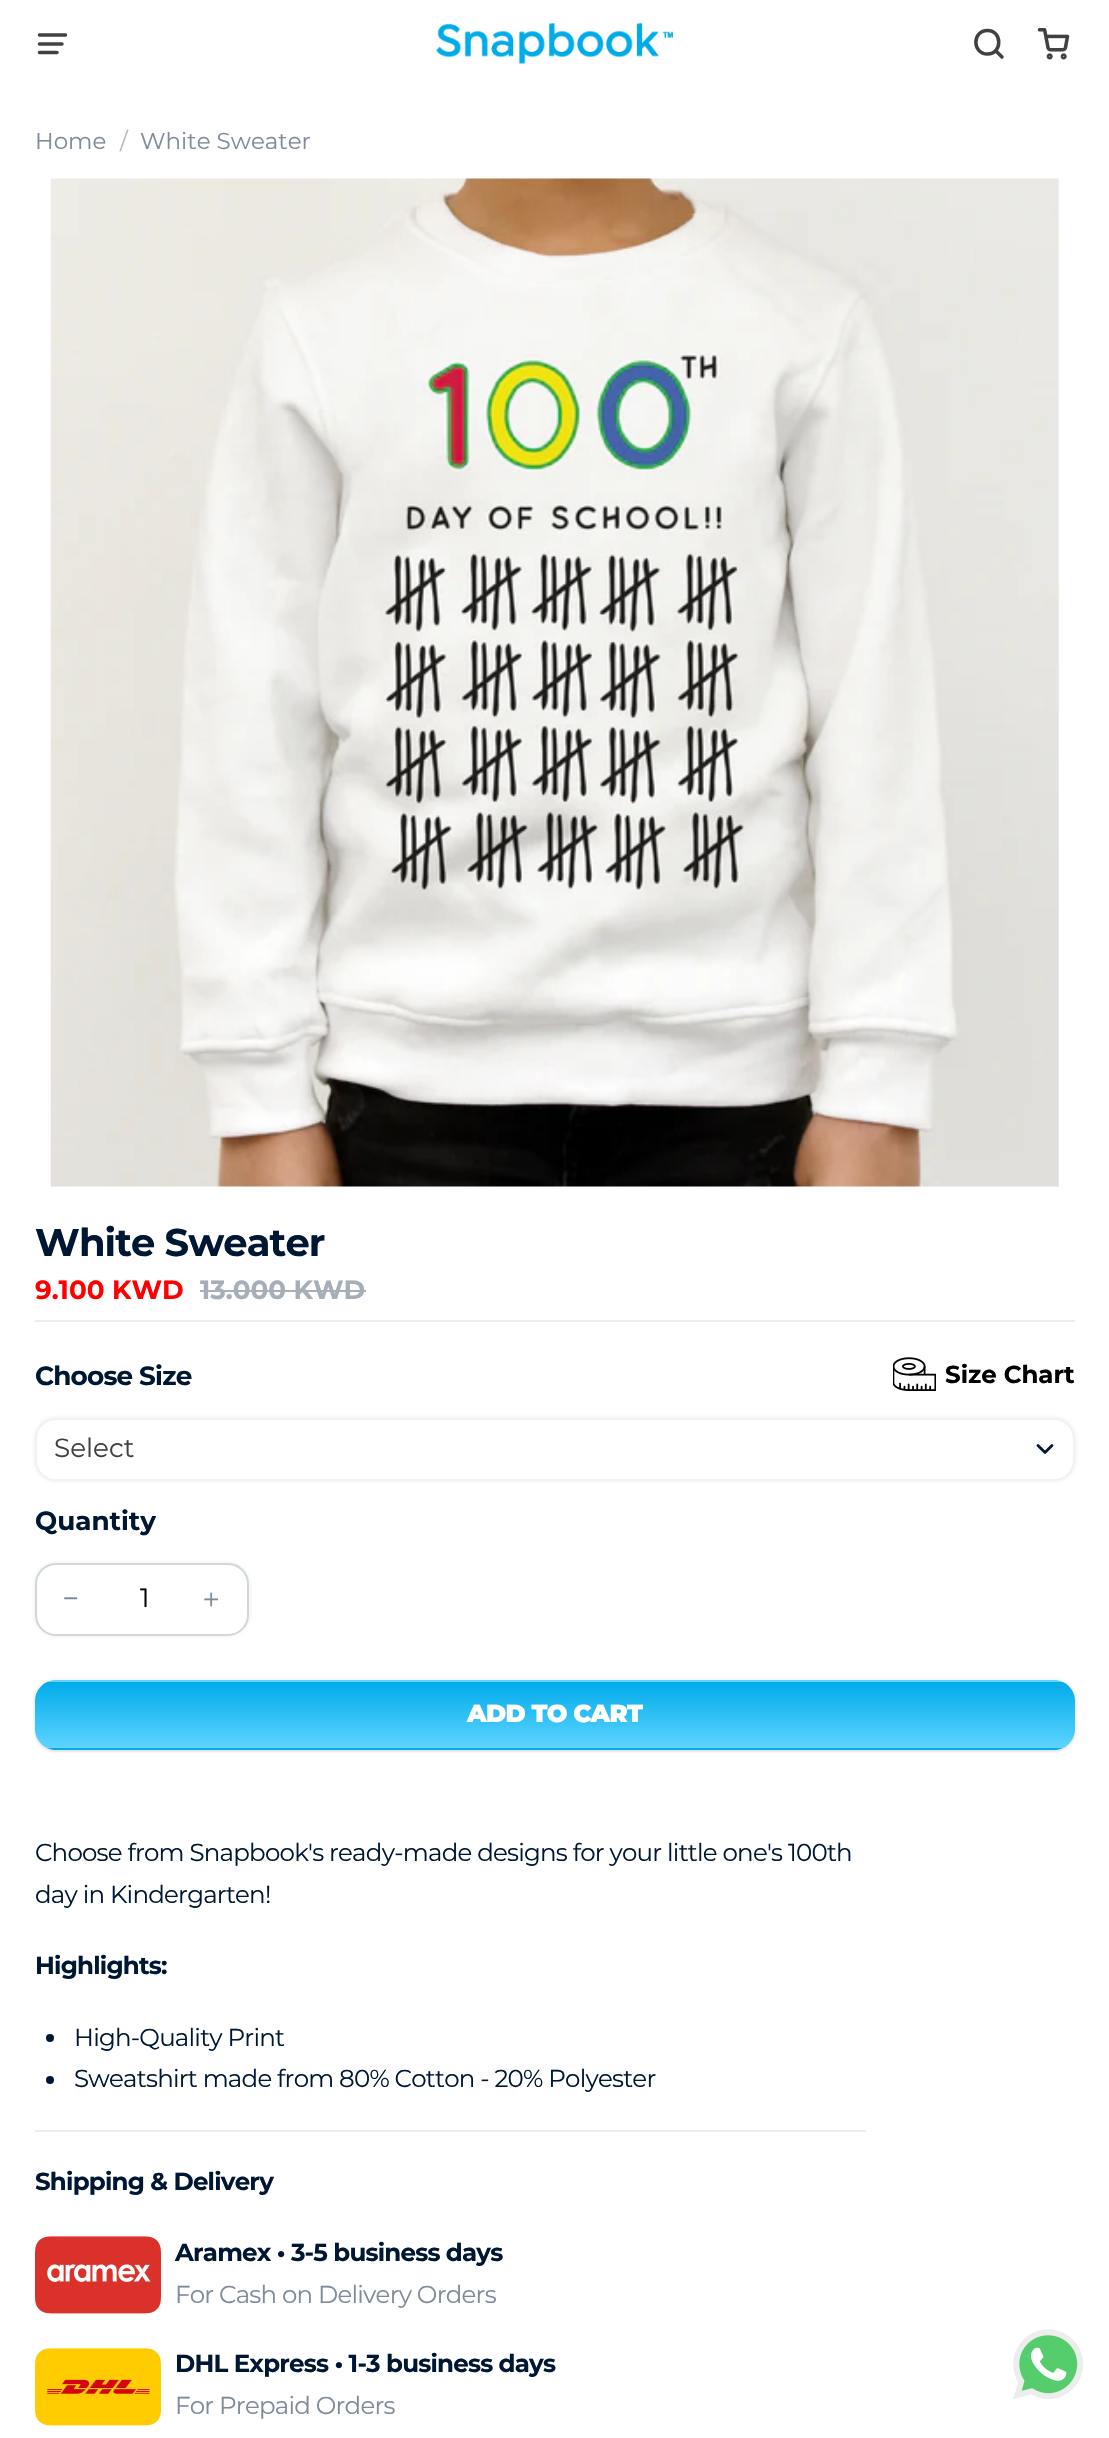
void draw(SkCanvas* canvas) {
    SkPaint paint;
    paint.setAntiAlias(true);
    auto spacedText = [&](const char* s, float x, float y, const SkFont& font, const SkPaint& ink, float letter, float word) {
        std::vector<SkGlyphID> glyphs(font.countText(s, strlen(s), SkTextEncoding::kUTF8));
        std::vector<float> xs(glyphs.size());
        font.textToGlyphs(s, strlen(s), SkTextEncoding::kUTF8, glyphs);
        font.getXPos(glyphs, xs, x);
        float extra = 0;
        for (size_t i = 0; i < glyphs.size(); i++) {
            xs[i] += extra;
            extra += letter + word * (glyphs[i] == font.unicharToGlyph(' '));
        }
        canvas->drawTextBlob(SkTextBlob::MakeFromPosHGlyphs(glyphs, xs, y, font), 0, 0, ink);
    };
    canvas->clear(0xFFFFFFFF);
    paint.setStyle(SkPaint::kStroke_Style);
    paint.setStrokeWidth(3.5f);
    paint.setStrokeCap(SkPaint::kRound_Cap);
    paint.setStrokeJoin(SkPaint::kRound_Join);
    paint.setColor(0xFF414042);
    canvas->drawPath(SkPathBuilder().moveTo(39.5f, 35).lineTo(65.5f, 35).moveTo(39.5f, 44).lineTo(62, 44).moveTo(39.5f, 52.5f).lineTo(57, 52.5f).detach(), paint);
    canvas->drawImageRect(SkImages::DeferredFromEncodedData(SkData::MakeFromFileName("img1.png")), SkRect::MakeXYWH(436, 23, 237, 41), SkSamplingOptions());
    canvas->drawPath(SkPathBuilder().moveTo(987.5f, 30.5f).cubicTo(972, 30.5f, 972, 54, 987.5f, 54).cubicTo(1002.5f, 54, 1002.5f, 30.5f, 987.5f, 30.5f).close().moveTo(1002, 57).lineTo(995.5f, 50.5f).close().detach(), paint);
    canvas->drawImageRect(SkImages::DeferredFromEncodedData(SkData::MakeFromFileName("img2.png")), SkRect::MakeXYWH(1037, 28, 33, 32), SkSamplingOptions());
    SkFont font1(fontMgr->matchFamilyStyle("Montserrat", SkFontStyle::Normal()), 23);
    font1.setSubpixel(true);
    paint.setStyle(SkPaint::kFill_Style);
    paint.setColor(0xFF808B99);
    canvas->drawString("Home", 35, 149, font1, paint);
    paint.setColor(0xFFB2B9C1);
    canvas->drawString("/", 120, 149, font1, paint);
    paint.setColor(0xFF808B99);
    canvas->drawString("White Sweater", 140, 149, font1, paint);
    canvas->drawImageRect(SkImages::DeferredFromEncodedData(SkData::MakeFromFileName("img3.png")), SkRect::MakeXYWH(50, 178, 1009, 1009), SkSamplingOptions());
    SkFont font2(fontMgr->matchFamilyStyle("Montserrat", SkFontStyle::Bold()), 38.5f);
    font2.setSubpixel(true);
    paint.setColor(0xFF001734);
    spacedText("White Sweater", 35, 1256, font2, paint, -0.9f, 0);
    paint.setColor(0xFFECEDEE);
    canvas->drawRect(SkRect::MakeXYWH(35, 1320, 1040, 2), paint);
    SkFont font3(fontMgr->matchFamilyStyle("Montserrat", SkFontStyle::Bold()), 26.25f);
    font3.setSubpixel(true);
    paint.setColor(0xFFFF0000);
    canvas->drawString("9.100 KWD", 35, 1299, font3, paint);
    paint.setColor(0xFFA6AEB8);
    canvas->drawString("13.000 KWD", 200, 1299, font3, paint);
    canvas->drawRect(SkRect::MakeXYWH(200, 1290, 166, 2), paint);
    paint.setColor(0xFF001734);
    spacedText("Choose Size", 35, 1385, font3, paint, -0.77f, 0);
    paint.setColor(0x33929FAA);
    paint.setMaskFilter(SkMaskFilter::MakeBlur(kNormal_SkBlurStyle, 2));
    canvas->drawRoundRect(SkRect::MakeXYWH(35, 1418, 1040, 63), 21, 21, paint);
    paint.setMaskFilter(nullptr);
    paint.setColor(0xFFFFFFFF);
    canvas->drawRoundRect(SkRect::MakeXYWH(36, 1419, 1038, 61), 20, 20, paint);
    paint.setStyle(SkPaint::kStroke_Style);
    paint.setStrokeWidth(2);
    paint.setStrokeCap(SkPaint::kButt_Cap);
    paint.setStrokeJoin(SkPaint::kMiter_Join);
    paint.setColor(0xFFF1F2F2);
    canvas->drawRoundRect(SkRect::MakeXYWH(36, 1419, 1038, 61), 20, 20, paint);
    SkFont font4(fontMgr->matchFamilyStyle("Montserrat", SkFontStyle::Normal()), 26.25f);
    font4.setSubpixel(true);
    paint.setStyle(SkPaint::kFill_Style);
    paint.setColor(0xFF414042);
    canvas->drawString("Select", 54, 1457, font4, paint);
    paint.setStyle(SkPaint::kStroke_Style);
    paint.setStrokeWidth(2.8f);
    paint.setStrokeCap(SkPaint::kRound_Cap);
    paint.setStrokeJoin(SkPaint::kRound_Join);
    paint.setColor(0xFF001734);
    canvas->drawPath(SkPathBuilder().moveTo(1038, 1445.5f).lineTo(1045, 1452.5f).lineTo(1052, 1445.5f).detach(), paint);
    canvas->drawImageRect(SkImages::DeferredFromEncodedData(SkData::MakeFromFileName("img4.png")), SkRect::MakeXYWH(893, 1357, 43, 34), SkSamplingOptions());
    SkFont font5(fontMgr->matchFamilyStyle("Montserrat", SkFontStyle::Bold()), 24.5f);
    font5.setSubpixel(true);
    paint.setStyle(SkPaint::kFill_Style);
    paint.setColor(0xFF000000);
    canvas->drawString("Size Chart", 945, 1383, font5, paint);
    paint.setColor(0xFF001734);
    canvas->drawString("Quantity", 35, 1530, font3, paint);
    paint.setColor(0x33929FAA);
    paint.setMaskFilter(SkMaskFilter::MakeBlur(kNormal_SkBlurStyle, 2));
    canvas->drawRoundRect(SkRect::MakeXYWH(35, 1563, 214, 73), 21, 21, paint);
    paint.setMaskFilter(nullptr);
    paint.setColor(0xFFFFFFFF);
    canvas->drawRoundRect(SkRect::MakeXYWH(36, 1564, 212, 71), 20, 20, paint);
    paint.setStyle(SkPaint::kStroke_Style);
    paint.setStrokeWidth(2);
    paint.setStrokeCap(SkPaint::kButt_Cap);
    paint.setStrokeJoin(SkPaint::kMiter_Join);
    paint.setColor(0xFFD1D6DA);
    canvas->drawRoundRect(SkRect::MakeXYWH(36, 1564, 212, 71), 20, 20, paint);
    SkFont font6(fontMgr->matchFamilyStyle("Liberation Sans", SkFontStyle::Normal()), 26.25f);
    font6.setSubpixel(true);
    paint.setStyle(SkPaint::kFill_Style);
    paint.setColor(0xFF808B99);
    spacedText("−", 63, 1607, font6, paint, 2, 0);
    paint.setColor(0xFF000000);
    canvas->drawString("1", 140, 1607, font4, paint);
    SkFont font7(fontMgr->matchFamilyStyle("WenQuanYi Zen Hei", SkFontStyle(500, SkFontStyle::kNormal_Width, SkFontStyle::kUpright_Slant)), 26.25f);
    font7.setSubpixel(true);
    paint.setColor(0xFF808B99);
    spacedText("＋", 198, 1607, font7, paint, 2, 0);
    paint.setColor(0x40929FAA);
    paint.setMaskFilter(SkMaskFilter::MakeBlur(kNormal_SkBlurStyle, 2));
    canvas->drawRoundRect(SkRect::MakeXYWH(35, 1680, 1040, 70), 21, 21, paint);
    paint.setMaskFilter(nullptr);
    paint.setColor(0x33929FAA);
    paint.setMaskFilter(SkMaskFilter::MakeBlur(kNormal_SkBlurStyle, 1));
    canvas->drawRoundRect(SkRect::MakeXYWH(35, 1682, 1040, 70), 21, 21, paint);
    paint.setMaskFilter(nullptr);
    canvas->save();
    canvas->clipPath(SkPathBuilder().moveTo(56, 1680).lineTo(1054, 1680).cubicTo(1065.5f, 1680, 1075, 1689.5f, 1075, 1701).lineTo(1075, 1729).cubicTo(1075, 1740.5f, 1065.5f, 1750, 1054, 1750).lineTo(56, 1750).cubicTo(44.5f, 1750, 35, 1740.5f, 35, 1729).lineTo(35, 1701).cubicTo(35, 1689.5f, 44.5f, 1680, 56, 1680).close().detach(), true);
    {
        const SkColor colors[] = {0xFF00ABEA, 0xFF5ED4FF};
        const float stops[] = {0, 1};
        const SkPoint ends[] = {{555, 1615}, {555, 1682}};
        paint.setShader(SkGradientShader::MakeLinear(ends, colors, stops, 2, SkTileMode::kClamp));
        paint.setAlpha(255);
    }
    canvas->drawRect(SkRect::MakeXYWH(47, 1680, 1016, 2), paint);
    {
        const SkColor colors[] = {0xFF00ABEA, 0xFF5ED4FF};
        const float stops[] = {0, 1};
        const SkPoint ends[] = {{555, 1682}, {555, 1748}};
        paint.setShader(SkGradientShader::MakeLinear(ends, colors, stops, 2, SkTileMode::kClamp));
        paint.setAlpha(255);
    }
    canvas->drawRect(SkRect::MakeXYWH(35, 1682, 1040, 66), paint);
    {
        const SkColor colors[] = {0xFF00ABEA, 0xFF5ED4FF};
        const float stops[] = {0, 1};
        const SkPoint ends[] = {{555, 1748}, {555, 1815}};
        paint.setShader(SkGradientShader::MakeLinear(ends, colors, stops, 2, SkTileMode::kClamp));
        paint.setAlpha(255);
    }
    canvas->drawRect(SkRect::MakeXYWH(47, 1748, 1016, 2), paint);
    canvas->restore();
    SkFont font8(fontMgr->matchFamilyStyle("Montserrat", SkFontStyle(900, SkFontStyle::kNormal_Width, SkFontStyle::kUpright_Slant)), 24.5f);
    font8.setSubpixel(true);
    paint.setShader(nullptr);
    paint.setColor(0xFFFFFFFF);
    spacedText("ADD TO CART", 467, 1722, font8, paint, -0.77f, 0);
    SkFont font9(fontMgr->matchFamilyStyle("Montserrat", SkFontStyle::Normal()), 24.5f);
    font9.setSubpixel(true);
    paint.setColor(0xFF001734);
    spacedText("Choose from Snapbook's ready-made designs for your little one's 100th", 35, 1861, font9, paint, -0.77f, 0);
    spacedText("day in Kindergarten!", 35, 1903, font9, paint, -0.77f, 0);
    spacedText("Highlights:", 35, 1974, font5, paint, -0.77f, 0);
    canvas->drawCircle(50, 2038, 4, paint);
    spacedText("High-Quality Print", 74, 2046, font9, paint, -0.77f, 0);
    canvas->drawCircle(50, 2080, 4, paint);
    spacedText("Sweatshirt made from 80% Cotton - 20% Polyester", 74, 2087, font9, paint, -0.77f, 0);
    paint.setColor(0xFFECEDEE);
    canvas->drawRect(SkRect::MakeXYWH(35, 2130, 831, 2), paint);
    paint.setColor(0xFF001734);
    spacedText("Shipping & Delivery", 35, 2190, font5, paint, -0.77f, 0);
    canvas->drawImageRect(SkImages::DeferredFromEncodedData(SkData::MakeFromFileName("img5.png")), SkRect::MakeXYWH(35, 2236, 126, 78), SkSamplingOptions());
    spacedText("Aramex • 3-5 business days", 175, 2261, font5, paint, -0.77f, 0);
    paint.setColor(0xFF808B99);
    spacedText("For Cash on Delivery Orders", 175, 2303, font9, paint, -0.77f, 0);
    canvas->drawImageRect(SkImages::DeferredFromEncodedData(SkData::MakeFromFileName("img6.png")), SkRect::MakeXYWH(35, 2348, 126, 78), SkSamplingOptions());
    paint.setColor(0xFF001734);
    spacedText("DHL Express • 1-3 business days", 175, 2372, font5, paint, -0.77f, 0);
    paint.setColor(0xFF808B99);
    spacedText("For Prepaid Orders", 175, 2414, font9, paint, -0.77f, 0);
    canvas->drawImageRect(SkImages::DeferredFromEncodedData(SkData::MakeFromFileName("img7.png")), SkRect::MakeXYWH(1013, 2329, 70, 70), SkSamplingOptions());
}
